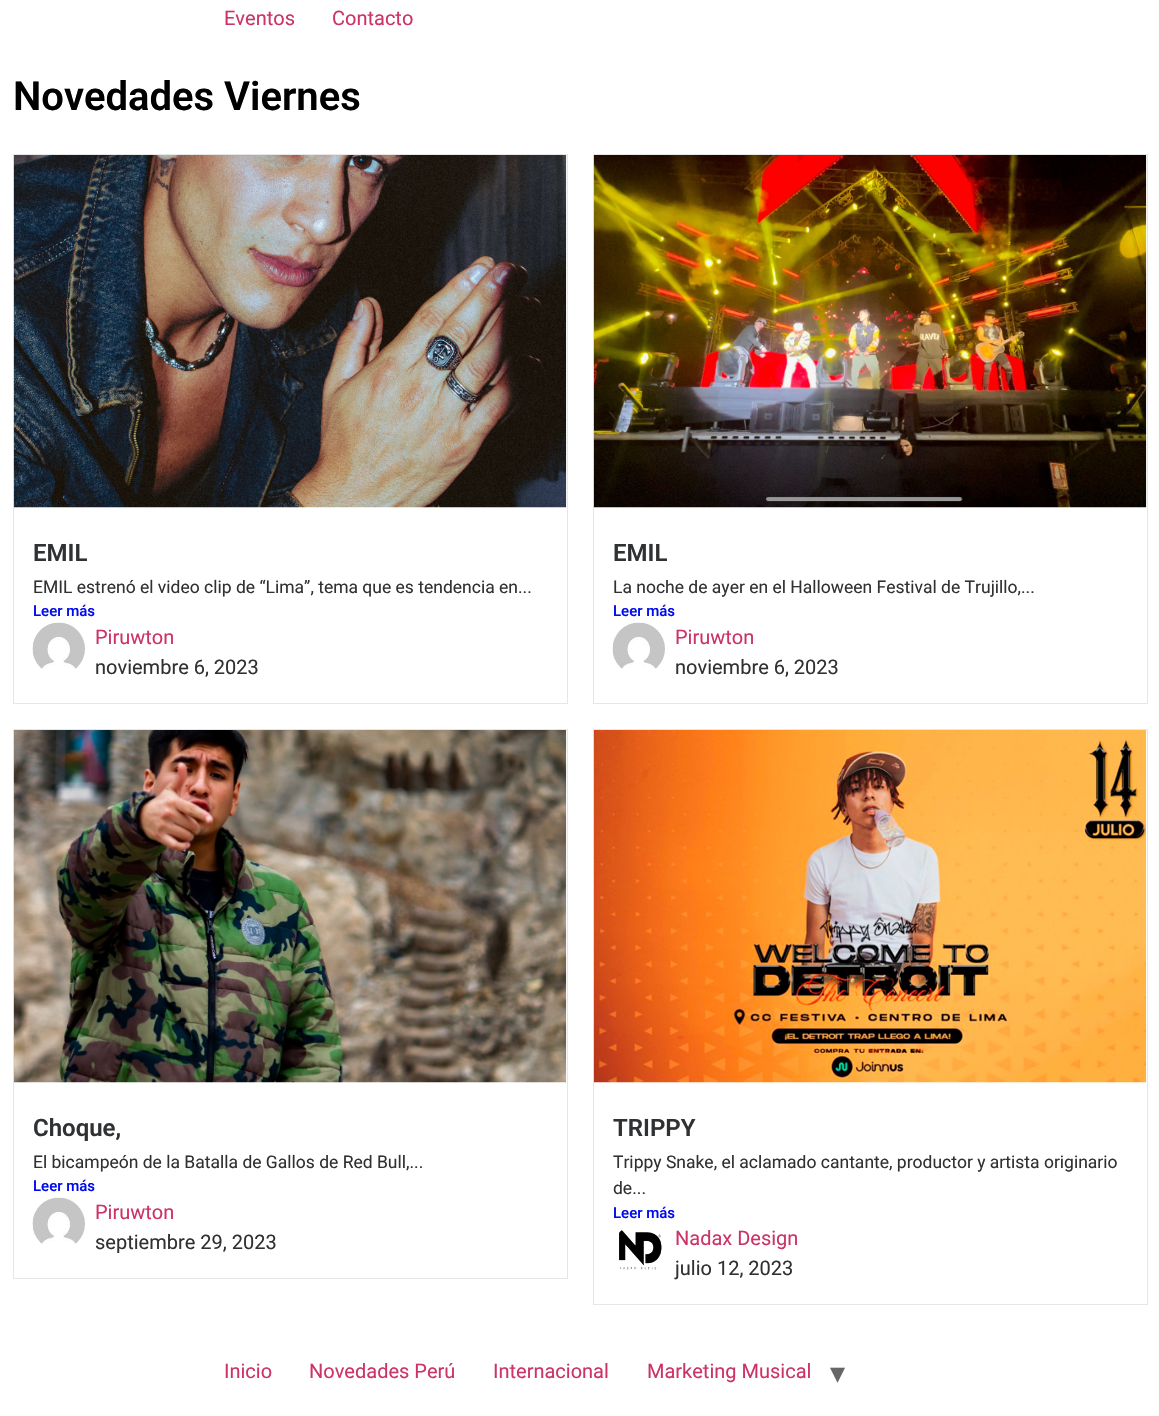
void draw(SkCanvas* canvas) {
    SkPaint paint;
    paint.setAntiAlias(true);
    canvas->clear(0xFFFFFFFF);
    SkFont font1(fontMgr->matchFamilyStyle("Roboto", SkFontStyle::Normal()), 20);
    font1.setSubpixel(true);
    paint.setColor(0xFFCC3366);
    canvas->drawString("Eventos", 224, 25, font1, paint);
    canvas->drawString("Contacto", 332, 25, font1, paint);
    SkFont font2(fontMgr->matchFamilyStyle("Roboto", SkFontStyle(600, SkFontStyle::kNormal_Width, SkFontStyle::kUpright_Slant)), 40);
    font2.setSubpixel(true);
    paint.setColor(0xFF000000);
    canvas->drawString("Novedades Viernes", 13, 110, font2, paint);
    paint.setStyle(SkPaint::kStroke_Style);
    paint.setStrokeWidth(1);
    paint.setColor(0xFFE6E6E6);
    canvas->drawRect(SkRect::MakeXYWH(13.5f, 154.5f, 554, 549), paint);
    canvas->drawImageRect(SkImages::DeferredFromEncodedData(SkData::MakeFromFileName("img1.png")), SkRect::MakeXYWH(13, 155, 554, 353), SkSamplingOptions());
    SkFont font3(fontMgr->matchFamilyStyle("Roboto", SkFontStyle(600, SkFontStyle::kNormal_Width, SkFontStyle::kUpright_Slant)), 24);
    font3.setSubpixel(true);
    paint.setStyle(SkPaint::kFill_Style);
    paint.setColor(0xFF303133);
    canvas->drawString("EMIL", 33, 561, font3, paint);
    SkFont font4(fontMgr->matchFamilyStyle("Roboto", SkFontStyle::Normal()), 17.5f);
    font4.setSubpixel(true);
    canvas->drawString("EMIL estrenó el video clip de “Lima”, tema que es tendencia en...", 33, 593, font4, paint);
    SkFont font5(fontMgr->matchFamilyStyle("Roboto", SkFontStyle(500, SkFontStyle::kNormal_Width, SkFontStyle::kUpright_Slant)), 15);
    font5.setSubpixel(true);
    paint.setColor(0xFF000BEC);
    canvas->drawString("Leer más", 33, 616, font5, paint);
    canvas->drawImageRect(SkImages::DeferredFromEncodedData(SkData::MakeFromFileName("img2.png")), SkRect::MakeXYWH(32, 622, 53, 47), SkSamplingOptions());
    paint.setColor(0xFFCC3366);
    canvas->drawString("Piruwton", 95, 644, font1, paint);
    paint.setColor(0xFF303133);
    canvas->drawString("noviembre 6, 2023", 95, 674, font1, paint);
    paint.setStyle(SkPaint::kStroke_Style);
    paint.setColor(0xFFE6E6E6);
    canvas->drawRect(SkRect::MakeXYWH(593.5f, 154.5f, 554, 549), paint);
    canvas->drawImageRect(SkImages::DeferredFromEncodedData(SkData::MakeFromFileName("img3.png")), SkRect::MakeXYWH(593, 155, 554, 353), SkSamplingOptions());
    paint.setStyle(SkPaint::kFill_Style);
    paint.setColor(0xFF303133);
    canvas->drawString("EMIL", 613, 561, font3, paint);
    canvas->drawString("La noche de ayer en el Halloween Festival de Trujillo,...", 613, 593, font4, paint);
    paint.setColor(0xFF000BEC);
    canvas->drawString("Leer más", 613, 616, font5, paint);
    canvas->drawImageRect(SkImages::DeferredFromEncodedData(SkData::MakeFromFileName("img4.png")), SkRect::MakeXYWH(612, 622, 53, 47), SkSamplingOptions());
    paint.setColor(0xFFCC3366);
    canvas->drawString("Piruwton", 675, 644, font1, paint);
    paint.setColor(0xFF303133);
    canvas->drawString("noviembre 6, 2023", 675, 674, font1, paint);
    paint.setStyle(SkPaint::kStroke_Style);
    paint.setColor(0xFFE6E6E6);
    canvas->drawRect(SkRect::MakeXYWH(13.5f, 729.5f, 554, 549), paint);
    canvas->drawImageRect(SkImages::DeferredFromEncodedData(SkData::MakeFromFileName("img5.png")), SkRect::MakeXYWH(13, 730, 554, 353), SkSamplingOptions());
    paint.setStyle(SkPaint::kFill_Style);
    paint.setColor(0xFF303133);
    canvas->drawString("Choque,", 33, 1136, font3, paint);
    canvas->drawString("El bicampeón de la Batalla de Gallos de Red Bull,...", 33, 1168, font4, paint);
    paint.setColor(0xFF000BEC);
    canvas->drawString("Leer más", 33, 1191, font5, paint);
    canvas->drawImageRect(SkImages::DeferredFromEncodedData(SkData::MakeFromFileName("img2.png")), SkRect::MakeXYWH(32, 1197, 53, 47), SkSamplingOptions());
    paint.setColor(0xFFCC3366);
    canvas->drawString("Piruwton", 95, 1219, font1, paint);
    paint.setColor(0xFF303133);
    canvas->drawString("septiembre 29, 2023", 95, 1249, font1, paint);
    paint.setStyle(SkPaint::kStroke_Style);
    paint.setColor(0xFFE6E6E6);
    canvas->drawRect(SkRect::MakeXYWH(593.5f, 729.5f, 554, 575), paint);
    canvas->drawImageRect(SkImages::DeferredFromEncodedData(SkData::MakeFromFileName("img6.png")), SkRect::MakeXYWH(593, 730, 554, 353), SkSamplingOptions());
    paint.setStyle(SkPaint::kFill_Style);
    paint.setColor(0xFF303133);
    canvas->drawString("TRIPPY", 613, 1136, font3, paint);
    canvas->drawString("Trippy Snake, el aclamado cantante, productor y artista originario", 613, 1168, font4, paint);
    canvas->drawString("de...", 613, 1194, font4, paint);
    paint.setColor(0xFF000BEC);
    canvas->drawString("Leer más", 613, 1218, font5, paint);
    canvas->drawImageRect(SkImages::DeferredFromEncodedData(SkData::MakeFromFileName("img7.png")), SkRect::MakeXYWH(619, 1230, 43, 40), SkSamplingOptions());
    paint.setColor(0xFFCC3366);
    canvas->drawString("Nadax Design", 675, 1245, font1, paint);
    paint.setColor(0xFF303133);
    canvas->drawString("julio 12, 2023", 675, 1275, font1, paint);
    paint.setColor(0xFFCC3366);
    canvas->drawString("Inicio", 224, 1378, font1, paint);
    canvas->drawString("Novedades Perú", 309, 1378, font1, paint);
    canvas->drawString("Internacional", 493, 1378, font1, paint);
    canvas->drawString("Marketing Musical", 647, 1378, font1, paint);
    SkFont font6(fontMgr->matchFamilyStyle("DejaVu Sans", SkFontStyle::Normal()), 30);
    font6.setSubpixel(true);
    paint.setColor(0xFF666666);
    canvas->drawString("▾", 830, 1383, font6, paint);
}
